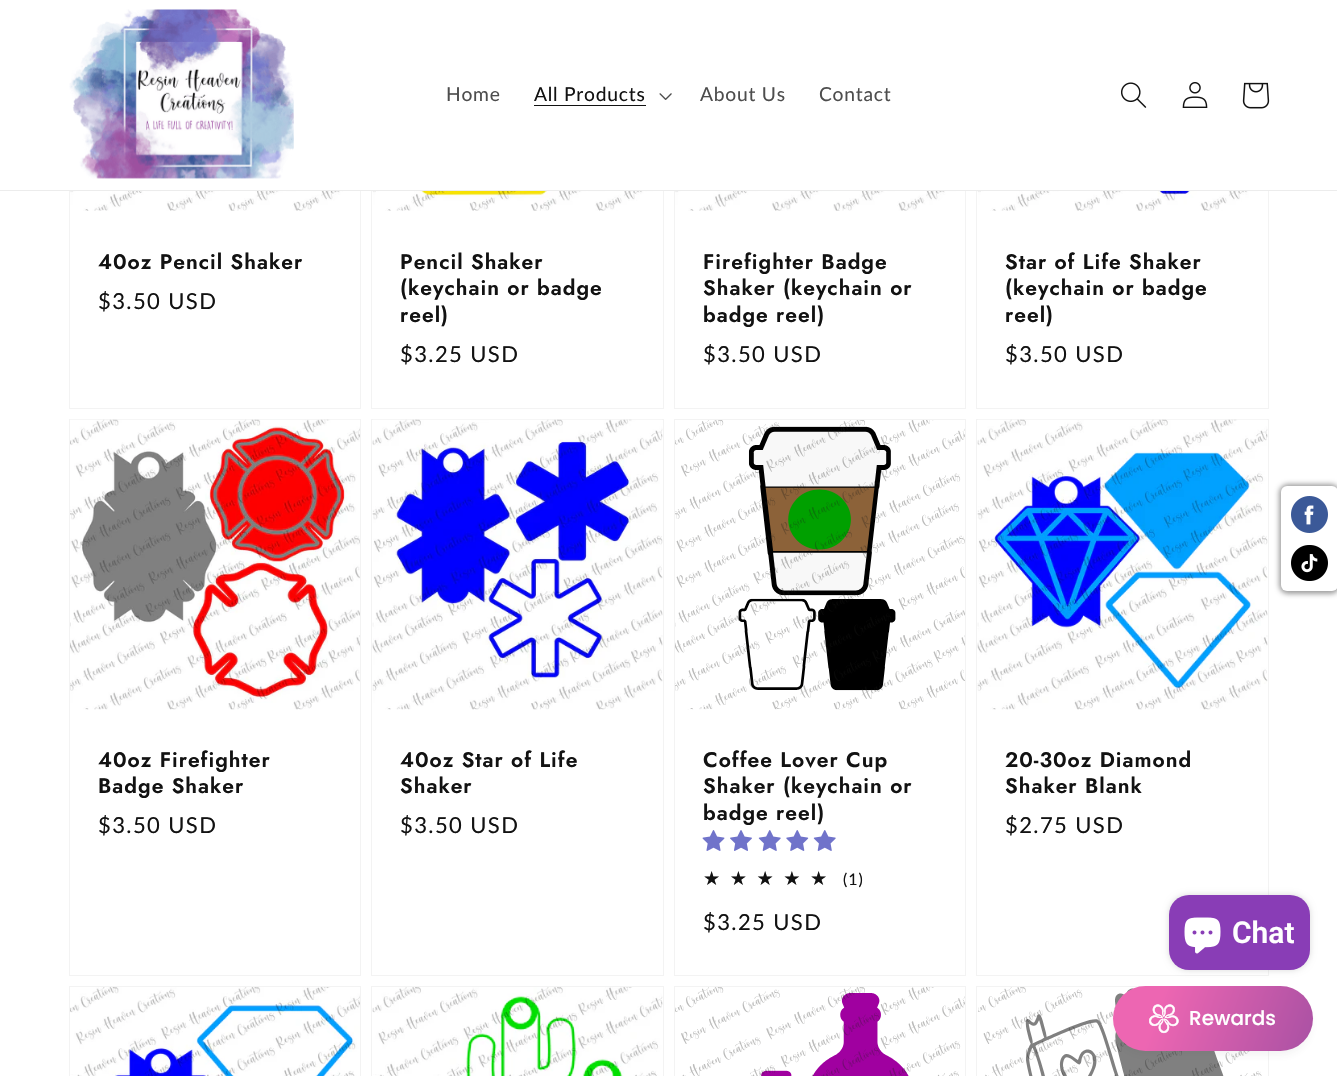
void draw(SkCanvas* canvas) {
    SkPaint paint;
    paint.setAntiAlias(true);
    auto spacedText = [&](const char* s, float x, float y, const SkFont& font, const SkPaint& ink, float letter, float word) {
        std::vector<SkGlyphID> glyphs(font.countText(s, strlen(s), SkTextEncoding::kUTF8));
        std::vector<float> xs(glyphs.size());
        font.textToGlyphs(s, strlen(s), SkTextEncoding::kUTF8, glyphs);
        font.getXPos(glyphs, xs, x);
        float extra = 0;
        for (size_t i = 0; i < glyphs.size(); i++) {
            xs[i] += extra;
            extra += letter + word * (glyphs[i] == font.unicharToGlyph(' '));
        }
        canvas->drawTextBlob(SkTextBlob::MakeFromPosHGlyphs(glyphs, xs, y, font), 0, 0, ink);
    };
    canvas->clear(0xFFFFFFFF);
    paint.setStyle(SkPaint::kStroke_Style);
    paint.setStrokeWidth(1);
    paint.setColor(0xFFF3F3F3);
    canvas->drawRect(SkRect::MakeXYWH(69.5f, -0.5f, 291, 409), paint);
    canvas->drawRect(SkRect::MakeXYWH(371.5f, -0.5f, 292, 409), paint);
    canvas->drawRect(SkRect::MakeXYWH(674.5f, -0.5f, 291, 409), paint);
    canvas->drawRect(SkRect::MakeXYWH(976.5f, -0.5f, 292, 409), paint);
    paint.setStyle(SkPaint::kFill_Style);
    paint.setColor(0xFFFFFFFF);
    canvas->drawRect(SkRect::MakeXYWH(69, 0, 1200, 190), paint);
    paint.setColor(0xFFECECEC);
    canvas->drawRect(SkRect::MakeXYWH(0, 190, 1337, 1), paint);
    canvas->drawImageRect(SkImages::DeferredFromEncodedData(SkData::MakeFromFileName("img1.png")), SkRect::MakeXYWH(69, 9, 225, 170), SkSamplingOptions());
    SkFont font1(fontMgr->matchFamilyStyle("Lato", SkFontStyle::Normal()), 19.25f);
    font1.setSubpixel(true);
    paint.setColor(0xFF4D4D4D);
    spacedText("Home", 446, 101, font1, paint, 0.75f, 0);
    paint.setColor(0xFF121212);
    spacedText("All Products", 534, 101, font1, paint, 0.75f, 0);
    canvas->drawRect(SkRect::MakeXYWH(534, 105, 112, 1), paint);
    canvas->drawImageRect(SkImages::DeferredFromEncodedData(SkData::MakeFromFileName("img2.png")), SkRect::MakeXYWH(659, 93, 13, 7), SkSamplingOptions());
    paint.setColor(0xFF4D4D4D);
    spacedText("About Us", 700, 101, font1, paint, 0.75f, 0);
    spacedText("Contact", 819, 101, font1, paint, 0.75f, 0);
    canvas->drawImageRect(SkImages::DeferredFromEncodedData(SkData::MakeFromFileName("img3.png")), SkRect::MakeXYWH(1121, 82, 26, 26), SkSamplingOptions());
    canvas->drawImageRect(SkImages::DeferredFromEncodedData(SkData::MakeFromFileName("img4.png")), SkRect::MakeXYWH(1182, 82, 26, 26), SkSamplingOptions());
    canvas->drawImageRect(SkImages::DeferredFromEncodedData(SkData::MakeFromFileName("img5.png")), SkRect::MakeXYWH(1242, 82, 28, 27), SkSamplingOptions());
    canvas->drawImageRect(SkImages::DeferredFromEncodedData(SkData::MakeFromFileName("img6.png")), SkRect::MakeXYWH(70, 191, 290, 20), SkSamplingOptions());
    SkFont font2(fontMgr->matchFamilyStyle("Jost", SkFontStyle(600, SkFontStyle::kNormal_Width, SkFontStyle::kUpright_Slant)), 21.1f);
    font2.setSubpixel(true);
    paint.setColor(0xFF121212);
    spacedText("40oz Pencil Shaker", 98, 269, font2, paint, 1, 0);
    SkFont font3(fontMgr->matchFamilyStyle("Lato", SkFontStyle::Normal()), 22);
    font3.setSubpixel(true);
    spacedText("$3.50 USD", 98, 309, font3, paint, 1.4f, 0);
    canvas->drawImageRect(SkImages::DeferredFromEncodedData(SkData::MakeFromFileName("img7.png")), SkRect::MakeXYWH(372, 191, 291, 20), SkSamplingOptions());
    spacedText("Pencil Shaker", 400, 269, font2, paint, 1, 0);
    spacedText("(keychain or badge", 400, 295, font2, paint, 1, 0);
    spacedText("reel)", 400, 322, font2, paint, 1, 0);
    spacedText("$3.25 USD", 400, 362, font3, paint, 1.4f, 0);
    canvas->drawImageRect(SkImages::DeferredFromEncodedData(SkData::MakeFromFileName("img8.png")), SkRect::MakeXYWH(675, 191, 290, 20), SkSamplingOptions());
    spacedText("Firefighter Badge", 703, 269, font2, paint, 1, 0);
    spacedText("Shaker (keychain or", 703, 295, font2, paint, 1, 0);
    spacedText("badge reel)", 703, 322, font2, paint, 1, 0);
    spacedText("$3.50 USD", 703, 362, font3, paint, 1.4f, 0);
    canvas->drawImageRect(SkImages::DeferredFromEncodedData(SkData::MakeFromFileName("img9.png")), SkRect::MakeXYWH(977, 191, 291, 20), SkSamplingOptions());
    spacedText("Star of Life Shaker", 1005, 269, font2, paint, 1, 0);
    spacedText("(keychain or badge", 1005, 295, font2, paint, 1, 0);
    spacedText("reel)", 1005, 322, font2, paint, 1, 0);
    spacedText("$3.50 USD", 1005, 362, font3, paint, 1.4f, 0);
    paint.setStyle(SkPaint::kStroke_Style);
    paint.setColor(0xFFF3F3F3);
    canvas->drawRect(SkRect::MakeXYWH(69.5f, 419.5f, 291, 556), paint);
    canvas->drawImageRect(SkImages::DeferredFromEncodedData(SkData::MakeFromFileName("img10.png")), SkRect::MakeXYWH(70, 419, 290, 291), SkSamplingOptions());
    paint.setStyle(SkPaint::kFill_Style);
    paint.setColor(0xFF121212);
    spacedText("40oz Firefighter", 98, 767, font2, paint, 1, 0);
    spacedText("Badge Shaker", 98, 793, font2, paint, 1, 0);
    spacedText("$3.50 USD", 98, 833, font3, paint, 1.4f, 0);
    paint.setStyle(SkPaint::kStroke_Style);
    paint.setColor(0xFFF3F3F3);
    canvas->drawRect(SkRect::MakeXYWH(371.5f, 419.5f, 292, 556), paint);
    canvas->drawImageRect(SkImages::DeferredFromEncodedData(SkData::MakeFromFileName("img11.png")), SkRect::MakeXYWH(372, 419, 291, 291), SkSamplingOptions());
    paint.setStyle(SkPaint::kFill_Style);
    paint.setColor(0xFF121212);
    spacedText("40oz Star of Life", 400, 767, font2, paint, 1, 0);
    spacedText("Shaker", 400, 793, font2, paint, 1, 0);
    spacedText("$3.50 USD", 400, 833, font3, paint, 1.4f, 0);
    paint.setStyle(SkPaint::kStroke_Style);
    paint.setColor(0xFFF3F3F3);
    canvas->drawRect(SkRect::MakeXYWH(674.5f, 419.5f, 291, 556), paint);
    canvas->drawImageRect(SkImages::DeferredFromEncodedData(SkData::MakeFromFileName("img12.png")), SkRect::MakeXYWH(675, 420, 290, 290), SkSamplingOptions());
    paint.setStyle(SkPaint::kFill_Style);
    paint.setColor(0xFF121212);
    spacedText("Coffee Lover Cup", 703, 767, font2, paint, 1, 0);
    spacedText("Shaker (keychain or", 703, 793, font2, paint, 1, 0);
    spacedText("badge reel)", 703, 820, font2, paint, 1, 0);
    canvas->drawImageRect(SkImages::DeferredFromEncodedData(SkData::MakeFromFileName("img13.png")), SkRect::MakeXYWH(702, 830, 23, 21), SkSamplingOptions());
    canvas->drawImageRect(SkImages::DeferredFromEncodedData(SkData::MakeFromFileName("img14.png")), SkRect::MakeXYWH(730, 830, 22, 21), SkSamplingOptions());
    canvas->drawImageRect(SkImages::DeferredFromEncodedData(SkData::MakeFromFileName("img15.png")), SkRect::MakeXYWH(758, 830, 23, 21), SkSamplingOptions());
    canvas->drawImageRect(SkImages::DeferredFromEncodedData(SkData::MakeFromFileName("img16.png")), SkRect::MakeXYWH(786, 830, 23, 21), SkSamplingOptions());
    canvas->drawImageRect(SkImages::DeferredFromEncodedData(SkData::MakeFromFileName("img15.png")), SkRect::MakeXYWH(813, 830, 23, 21), SkSamplingOptions());
    SkFont font4(fontMgr->matchFamilyStyle("DejaVu Sans", SkFontStyle::Normal()), 19.25f);
    font4.setSubpixel(true);
    {
        const SkColor colors[] = {0xFF121212, 0xFFDBDBDB};
        const float stops[] = {1, 1};
        const SkPoint ends[] = {{703, 878}, {837, 878}};
        paint.setShader(SkGradientShader::MakeLinear(ends, colors, stops, 2, SkTileMode::kClamp));
        paint.setAlpha(255);
    }
    spacedText("★★★★★", 703, 885, font4, paint, 9.5f, 0);
    SkFont font5(fontMgr->matchFamilyStyle("Lato", SkFontStyle::Normal()), 16);
    font5.setSubpixel(true);
    paint.setShader(nullptr);
    paint.setColor(0xFF121212);
    spacedText("(1)", 843, 885, font5, paint, 1, 0);
    spacedText("$3.25 USD", 703, 930, font3, paint, 1.4f, 0);
    paint.setStyle(SkPaint::kStroke_Style);
    paint.setColor(0xFFF3F3F3);
    canvas->drawRect(SkRect::MakeXYWH(976.5f, 419.5f, 292, 556), paint);
    canvas->drawImageRect(SkImages::DeferredFromEncodedData(SkData::MakeFromFileName("img17.png")), SkRect::MakeXYWH(977, 419, 291, 291), SkSamplingOptions());
    paint.setStyle(SkPaint::kFill_Style);
    paint.setColor(0xFF121212);
    spacedText("20-30oz Diamond", 1005, 767, font2, paint, 1, 0);
    spacedText("Shaker Blank", 1005, 793, font2, paint, 1, 0);
    spacedText("$2.75 USD", 1005, 833, font3, paint, 1.4f, 0);
    paint.setStyle(SkPaint::kStroke_Style);
    paint.setColor(0xFFF3F3F3);
    canvas->drawRect(SkRect::MakeXYWH(69.5f, 986.5f, 291, 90), paint);
    canvas->drawImageRect(SkImages::DeferredFromEncodedData(SkData::MakeFromFileName("img18.png")), SkRect::MakeXYWH(70, 987, 290, 89), SkSamplingOptions());
    canvas->drawRect(SkRect::MakeXYWH(371.5f, 986.5f, 292, 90), paint);
    canvas->drawImageRect(SkImages::DeferredFromEncodedData(SkData::MakeFromFileName("img19.png")), SkRect::MakeXYWH(372, 987, 291, 89), SkSamplingOptions());
    canvas->drawRect(SkRect::MakeXYWH(674.5f, 986.5f, 291, 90), paint);
    canvas->drawImageRect(SkImages::DeferredFromEncodedData(SkData::MakeFromFileName("img20.png")), SkRect::MakeXYWH(675, 987, 290, 89), SkSamplingOptions());
    canvas->drawRect(SkRect::MakeXYWH(976.5f, 986.5f, 292, 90), paint);
    canvas->drawImageRect(SkImages::DeferredFromEncodedData(SkData::MakeFromFileName("img21.png")), SkRect::MakeXYWH(978, 987, 290, 89), SkSamplingOptions());
    paint.setStyle(SkPaint::kFill_Style);
    paint.setColor(0xFF9E9E9E);
    paint.setMaskFilter(SkMaskFilter::MakeBlur(kNormal_SkBlurStyle, 2.5f));
    canvas->drawRoundRect(SkRect::MakeXYWH(1279, 484, 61, 110), 9, 9, paint);
    paint.setMaskFilter(nullptr);
    paint.setColor(0xFFFFFFFF);
    canvas->drawRoundRect(SkRect::MakeXYWH(1281, 486, 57, 105), 6, 6, paint);
    canvas->drawImageRect(SkImages::DeferredFromEncodedData(SkData::MakeFromFileName("img22.png")), SkRect::MakeXYWH(1291, 496, 37, 37), SkSamplingOptions());
    canvas->drawImageRect(SkImages::DeferredFromEncodedData(SkData::MakeFromFileName("img23.png")), SkRect::MakeXYWH(1291, 545, 37, 36), SkSamplingOptions());
    paint.setColor(0x26000000);
    paint.setMaskFilter(SkMaskFilter::MakeBlur(kNormal_SkBlurStyle, 3));
    canvas->drawRoundRect(SkRect::MakeXYWH(1169, 895, 141, 75), 20, 20, paint);
    paint.setMaskFilter(nullptr);
    paint.setColor(0xFF893DB6);
    canvas->drawRoundRect(SkRect::MakeXYWH(1169, 895, 141, 75), 20, 20, paint);
    canvas->drawImageRect(SkImages::DeferredFromEncodedData(SkData::MakeFromFileName("img24.png")), SkRect::MakeXYWH(1184, 917, 37, 37), SkSamplingOptions());
    SkFont font6(fontMgr->matchFamilyStyle("Roboto", SkFontStyle(600, SkFontStyle::kNormal_Width, SkFontStyle::kUpright_Slant)), 30);
    font6.setSubpixel(true);
    paint.setColor(0xFFFFFFFF);
    canvas->drawString("Chat", 1232, 943, font6, paint);
    paint.setColor(0x14444444);
    paint.setMaskFilter(SkMaskFilter::MakeBlur(kNormal_SkBlurStyle, 5));
    canvas->drawRoundRect(SkRect::MakeXYWH(1115, 994, 195, 60), 30, 30, paint);
    paint.setMaskFilter(nullptr);
    {
        const SkColor colors[] = {0xFFED66B2, 0xFF86469C};
        const float stops[] = {0.17f, 1};
        const SkPoint ends[] = {{1113, 984}, {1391, 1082}};
        paint.setShader(SkGradientShader::MakeLinear(ends, colors, stops, 2, SkTileMode::kClamp));
        paint.setAlpha(255);
    }
    canvas->drawRoundRect(SkRect::MakeXYWH(1113, 986, 200, 65), 32.5f, 32.5f, paint);
    canvas->drawImageRect(SkImages::DeferredFromEncodedData(SkData::MakeFromFileName("img25.png")), SkRect::MakeXYWH(1149, 1004, 30, 30), SkSamplingOptions());
    SkFont font7(fontMgr->matchFamilyStyle("Poppins", SkFontStyle(500, SkFontStyle::kNormal_Width, SkFontStyle::kUpright_Slant)), 20);
    font7.setSubpixel(true);
    paint.setShader(nullptr);
    paint.setColor(0xFFFFFFFF);
    canvas->drawString("Rewards", 1189, 1025, font7, paint);
}
